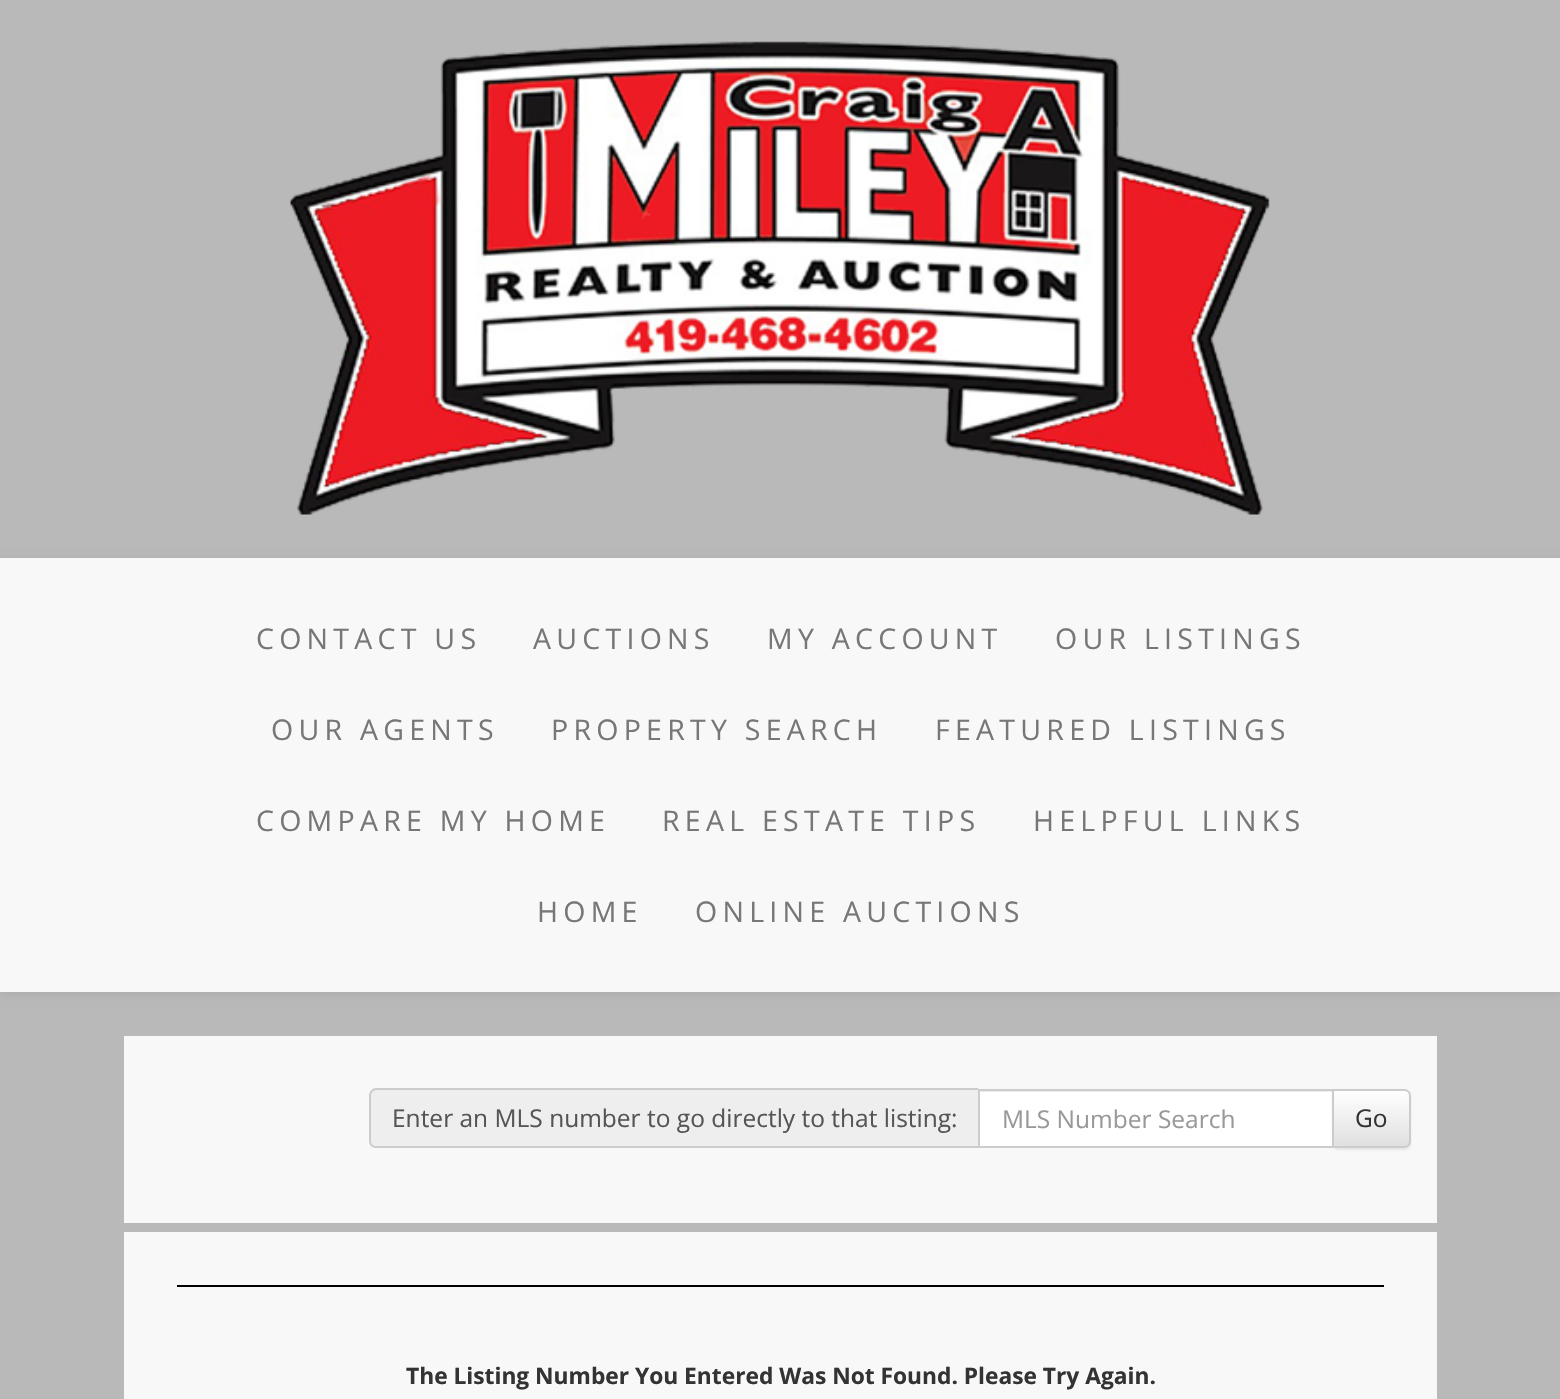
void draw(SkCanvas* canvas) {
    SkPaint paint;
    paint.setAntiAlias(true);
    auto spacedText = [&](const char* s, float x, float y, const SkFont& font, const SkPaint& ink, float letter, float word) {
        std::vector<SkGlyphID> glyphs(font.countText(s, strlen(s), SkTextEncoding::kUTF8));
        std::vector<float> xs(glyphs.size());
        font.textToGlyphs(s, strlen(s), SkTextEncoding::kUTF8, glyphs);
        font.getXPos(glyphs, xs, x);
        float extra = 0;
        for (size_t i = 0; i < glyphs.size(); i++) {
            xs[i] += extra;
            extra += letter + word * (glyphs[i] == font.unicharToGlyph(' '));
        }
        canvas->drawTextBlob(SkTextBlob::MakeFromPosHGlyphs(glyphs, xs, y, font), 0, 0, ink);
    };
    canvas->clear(0xFFB9B9B9);
    canvas->drawImageRect(SkImages::DeferredFromEncodedData(SkData::MakeFromFileName("img1.png")), SkRect::MakeXYWH(290, 41, 980, 474), SkSamplingOptions());
    paint.setColor(0x12000000);
    paint.setMaskFilter(SkMaskFilter::MakeBlur(kNormal_SkBlurStyle, 4.5f));
    canvas->drawRect(SkRect::MakeXYWH(0, 560, 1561, 434), paint);
    paint.setMaskFilter(nullptr);
    paint.setColor(0xFFF8F8F8);
    canvas->drawRect(SkRect::MakeXYWH(0, 558, 1560, 434), paint);
    SkFont font1(fontMgr->matchFamilyStyle("Open Sans", SkFontStyle::Normal()), 28.5f);
    font1.setSubpixel(true);
    paint.setColor(0xFF777777);
    spacedText("CONTACT US", 256, 649, font1, paint, 5.25f, 0);
    spacedText("AUCTIONS", 533, 649, font1, paint, 5.25f, 0);
    spacedText("MY ACCOUNT", 767, 649, font1, paint, 5.25f, 0);
    spacedText("OUR LISTINGS", 1055, 649, font1, paint, 5.25f, 0);
    spacedText("OUR AGENTS", 271, 740, font1, paint, 5.25f, 0);
    spacedText("PROPERTY SEARCH", 551, 740, font1, paint, 5.25f, 0);
    spacedText("FEATURED LISTINGS", 935, 740, font1, paint, 5.25f, 0);
    spacedText("COMPARE MY HOME", 256, 831, font1, paint, 5.25f, 0);
    spacedText("REAL ESTATE TIPS", 662, 831, font1, paint, 5.25f, 0);
    spacedText("HELPFUL LINKS", 1033, 831, font1, paint, 5.25f, 0);
    spacedText("HOME", 537, 922, font1, paint, 5.25f, 0);
    spacedText("ONLINE AUCTIONS", 695, 922, font1, paint, 5.25f, 0);
    paint.setColor(0xFFF8F8F8);
    canvas->drawRect(SkRect::MakeXYWH(124, 1036, 1313, 187), paint);
    paint.setColor(0xFFEEEEEE);
    canvas->drawPath(SkPathBuilder().moveTo(376, 1089).lineTo(978, 1089).lineTo(978, 1148).lineTo(376, 1148).cubicTo(372, 1148, 369, 1145, 369, 1141).lineTo(369, 1096).cubicTo(369, 1092, 372, 1089, 376, 1089).close().detach(), paint);
    paint.setColor(0xFFCCCCCC);
    canvas->drawPath(SkPathBuilder(SkPathFillType::kEvenOdd).moveTo(376, 1088).lineTo(978, 1088).lineTo(978, 1148).lineTo(376, 1148).cubicTo(372, 1148, 369, 1145, 369, 1141).lineTo(369, 1096).cubicTo(369, 1092, 372, 1088, 376, 1088).close().moveTo(376, 1090).lineTo(978, 1090).lineTo(978, 1146).lineTo(376, 1146).cubicTo(373, 1146, 371, 1144, 371, 1141).lineTo(371, 1096).cubicTo(371, 1093, 373, 1090, 376, 1090).close().detach(), paint);
    SkFont font2(fontMgr->matchFamilyStyle("Open Sans", SkFontStyle::Normal()), 24.5f);
    font2.setSubpixel(true);
    paint.setColor(0xFF555555);
    canvas->drawString("Enter an MLS number to go directly to that listing:", 392, 1127, font2, paint);
    paint.setColor(0xFFFFFFFF);
    canvas->drawRect(SkRect::MakeXYWH(980, 1092, 352, 54), paint);
    paint.setColor(0xFFECECEC);
    canvas->drawRect(SkRect::MakeXYWH(980, 1091, 352, 1), paint);
    paint.setStyle(SkPaint::kStroke_Style);
    paint.setStrokeWidth(2);
    paint.setColor(0xFFCCCCCC);
    canvas->drawRect(SkRect::MakeXYWH(979, 1090, 354, 57), paint);
    paint.setStyle(SkPaint::kFill_Style);
    paint.setColor(0xFF999999);
    canvas->drawString("MLS Number Search", 1002, 1128, font2, paint);
    paint.setColor(0x12000000);
    paint.setMaskFilter(SkMaskFilter::MakeBlur(kNormal_SkBlurStyle, 1));
    canvas->drawRoundRect(SkRect::MakeXYWH(1332, 1090, 79, 60), 7, 7, paint);
    paint.setMaskFilter(nullptr);
    canvas->save();
    canvas->clipPath(SkPathBuilder().moveTo(1332, 1089).lineTo(1404, 1089).cubicTo(1408, 1089, 1411, 1092, 1411, 1096).lineTo(1411, 1141).cubicTo(1411, 1145, 1408, 1148, 1404, 1148).lineTo(1332, 1148).close().detach(), true);
    {
        const SkColor colors[] = {0xFFFFFFFF, 0xFFE0E0E0};
        const float stops[] = {0, 1};
        const SkPoint ends[] = {{1371, 1090}, {1371, 1146}};
        paint.setShader(SkGradientShader::MakeLinear(ends, colors, stops, 2, SkTileMode::kClamp));
        paint.setAlpha(255);
    }
    canvas->drawRect(SkRect::MakeXYWH(1334, 1090, 77, 56), paint);
    canvas->restore();
    paint.setStyle(SkPaint::kStroke_Style);
    paint.setShader(nullptr);
    paint.setColor(0xFFCCCCCC);
    canvas->drawPath(SkPathBuilder().moveTo(1333, 1090).lineTo(1404, 1090).cubicTo(1407.5f, 1090, 1410, 1092.5f, 1410, 1096).lineTo(1410, 1141).cubicTo(1410, 1144.5f, 1407.5f, 1147, 1404, 1147).lineTo(1333, 1147).close().detach(), paint);
    paint.setStyle(SkPaint::kFill_Style);
    paint.setColor(0xFF333333);
    canvas->drawString("Go", 1355, 1127, font2, paint);
    paint.setColor(0xFFF8F8F8);
    canvas->drawRect(SkRect::MakeXYWH(124, 1232, 1313, 167), paint);
    paint.setColor(0xFF000000);
    canvas->drawRect(SkRect::MakeXYWH(177, 1285, 1207, 2), paint);
    SkFont font3(fontMgr->matchFamilyStyle("Open Sans", SkFontStyle::Bold()), 22.75f);
    font3.setSubpixel(true);
    paint.setColor(0xFF333333);
    canvas->drawString("The Listing Number You Entered Was Not Found. Please Try Again.", 406, 1384, font3, paint);
}
